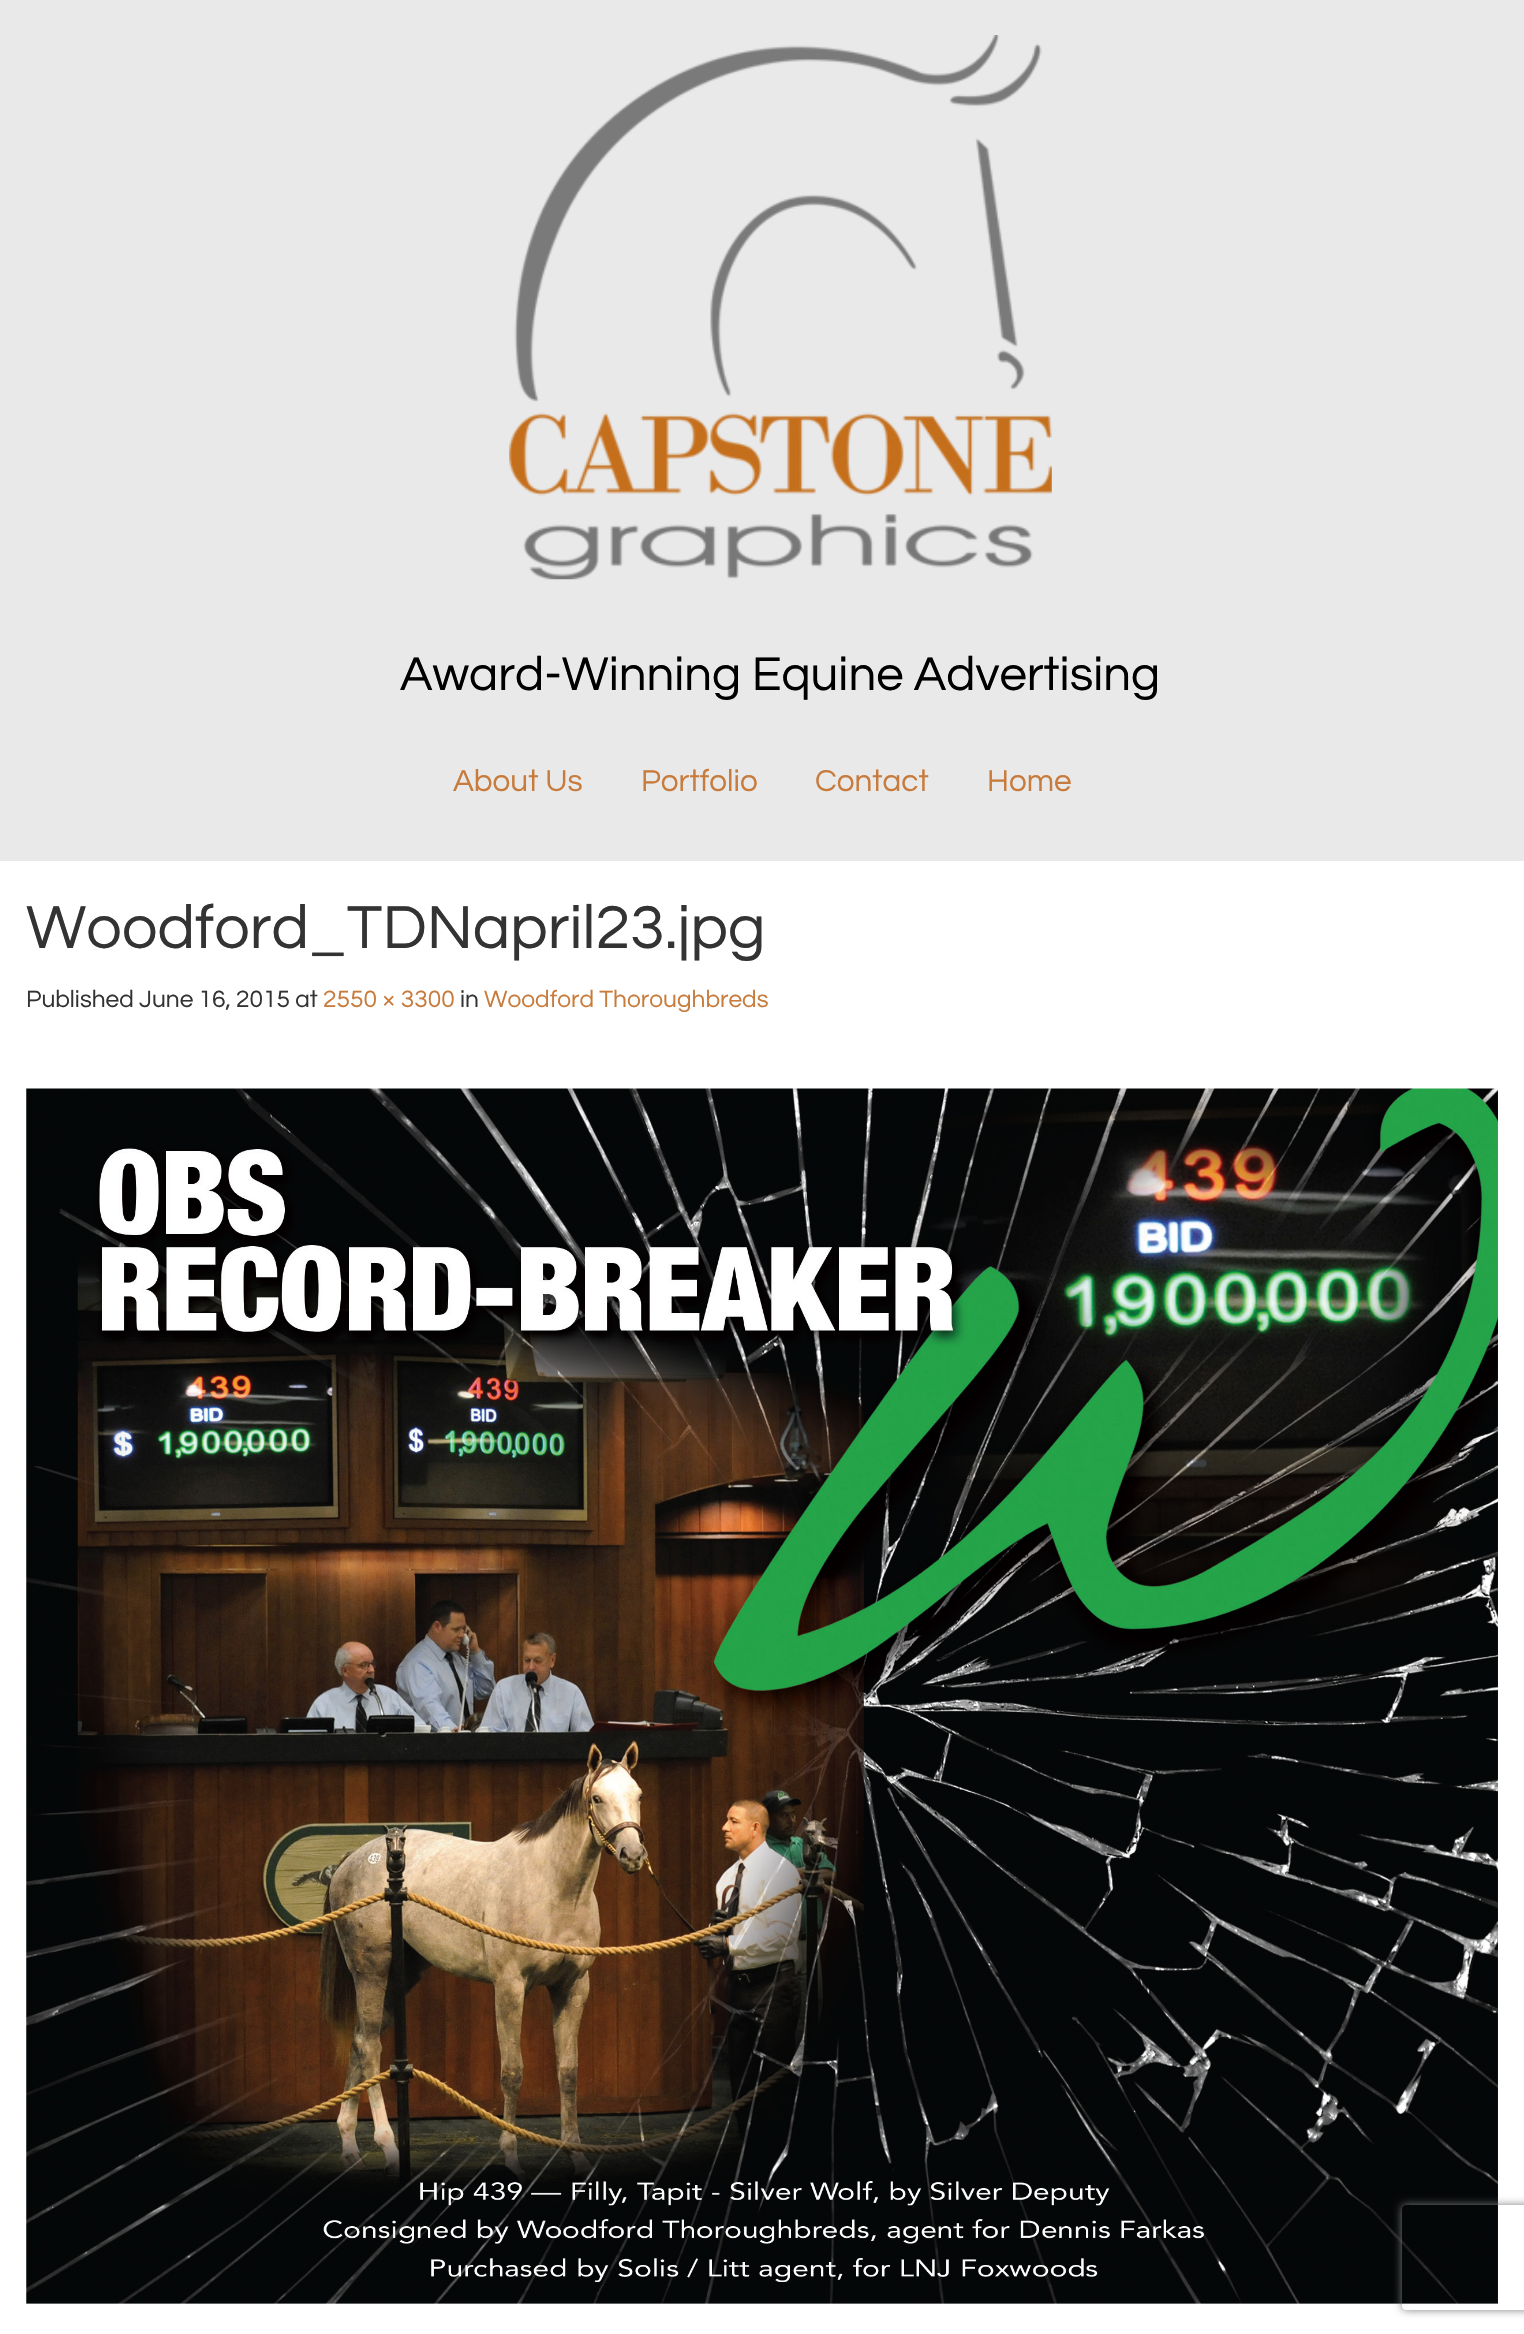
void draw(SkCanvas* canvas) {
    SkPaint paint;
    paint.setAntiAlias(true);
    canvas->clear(0xFFFFFFFF);
    paint.setColor(0xFFE9E9E9);
    canvas->drawRect(SkRect::MakeXYWH(0, 0, 1524, 861), paint);
    canvas->drawImageRect(SkImages::DeferredFromEncodedData(SkData::MakeFromFileName("img1.png")), SkRect::MakeXYWH(509, 35, 543, 545), SkSamplingOptions());
    SkFont font1(fontMgr->matchFamilyStyle("Questrial", SkFontStyle::Normal()), 49);
    font1.setSubpixel(true);
    paint.setColor(0xFF000000);
    canvas->drawString("Award-Winning Equine Advertising", 400, 690, font1, paint);
    SkFont font2(fontMgr->matchFamilyStyle("Questrial", SkFontStyle::Normal()), 31.5f);
    font2.setSubpixel(true);
    paint.setColor(0xFFC77B3C);
    canvas->drawString("About Us", 453, 791, font2, paint);
    canvas->drawString("Portfolio", 641, 791, font2, paint);
    canvas->drawString("Contact", 815, 791, font2, paint);
    canvas->drawString("Home", 987, 791, font2, paint);
    SkFont font3(fontMgr->matchFamilyStyle("Questrial", SkFontStyle::Normal()), 63);
    font3.setSubpixel(true);
    paint.setColor(0xFF333333);
    canvas->drawString("Woodford_TDNapril23.jpg", 26, 948, font3, paint);
    SkFont font4(fontMgr->matchFamilyStyle("Questrial", SkFontStyle::Normal()), 24.5f);
    font4.setSubpixel(true);
    canvas->drawString("Published June 16, 2015 at", 26, 1007, font4, paint);
    paint.setColor(0xFFC77B3C);
    canvas->drawString("2550 × 3300", 323, 1007, font4, paint);
    paint.setColor(0xFF333333);
    canvas->drawString("in", 460, 1007, font4, paint);
    paint.setColor(0xFFC77B3C);
    canvas->drawString("Woodford Thoroughbreds", 484, 1007, font4, paint);
    canvas->drawImageRect(SkImages::DeferredFromEncodedData(SkData::MakeFromFileName("img2.png")), SkRect::MakeXYWH(26, 1088, 1472, 1216), SkSamplingOptions());
    canvas->save();
    canvas->clipPath(SkPathBuilder(SkPathFillType::kEvenOdd).moveTo(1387, 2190).lineTo(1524, 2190).lineTo(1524, 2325).lineTo(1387, 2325).close().moveTo(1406, 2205).lineTo(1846, 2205).cubicTo(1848, 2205, 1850, 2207, 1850, 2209).lineTo(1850, 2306).cubicTo(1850, 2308, 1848, 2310, 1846, 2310).lineTo(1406, 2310).cubicTo(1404, 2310, 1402, 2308, 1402, 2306).lineTo(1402, 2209).cubicTo(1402, 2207, 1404, 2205, 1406, 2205).close().detach(), true);
    paint.setColor(0xFF808080);
    paint.setMaskFilter(SkMaskFilter::MakeBlur(kNormal_SkBlurStyle, 4.5f));
    canvas->drawRoundRect(SkRect::MakeXYWH(1402, 2205, 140, 105), 4, 4, paint);
    paint.setMaskFilter(nullptr);
    canvas->restore();
}
